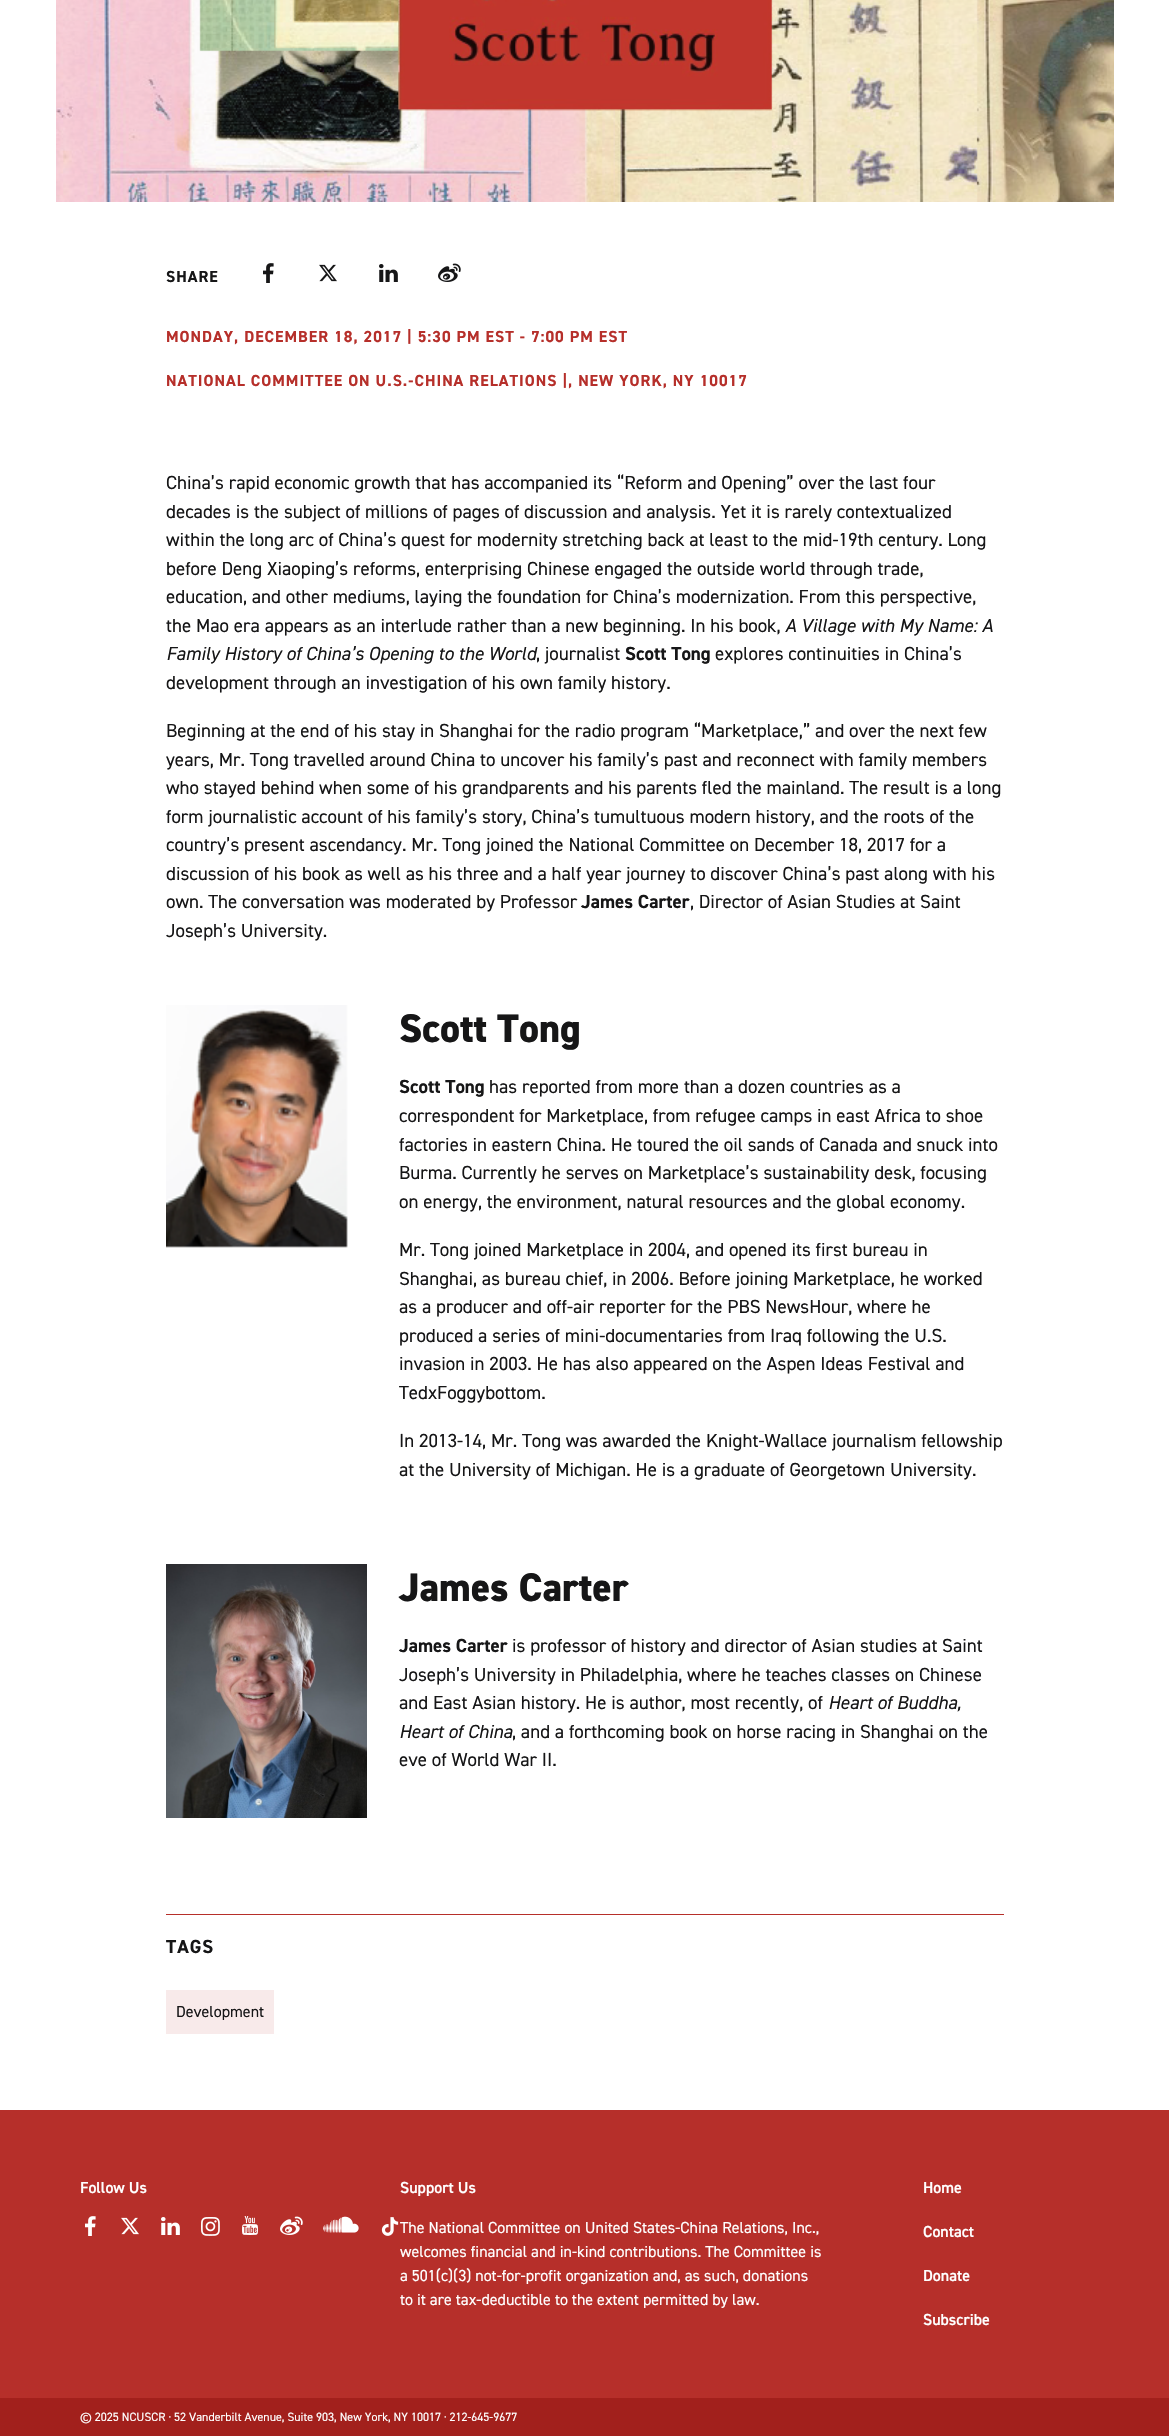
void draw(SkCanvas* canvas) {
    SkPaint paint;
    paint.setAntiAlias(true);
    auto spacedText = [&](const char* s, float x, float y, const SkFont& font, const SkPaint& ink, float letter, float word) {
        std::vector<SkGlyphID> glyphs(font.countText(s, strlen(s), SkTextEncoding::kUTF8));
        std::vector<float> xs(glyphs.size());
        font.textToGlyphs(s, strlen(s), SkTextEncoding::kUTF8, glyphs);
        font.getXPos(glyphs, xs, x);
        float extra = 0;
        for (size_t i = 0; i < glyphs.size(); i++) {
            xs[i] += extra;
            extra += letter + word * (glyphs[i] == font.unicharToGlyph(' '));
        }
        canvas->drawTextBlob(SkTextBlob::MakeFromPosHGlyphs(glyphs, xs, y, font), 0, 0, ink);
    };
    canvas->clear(0xFFFFFFFF);
    canvas->drawImageRect(SkImages::DeferredFromEncodedData(SkData::MakeFromFileName("img1.png")), SkRect::MakeXYWH(56, 0, 1058, 202), SkSamplingOptions());
    SkFont font1(fontMgr->matchFamilyStyle("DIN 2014", SkFontStyle::Bold()), 16);
    font1.setSubpixel(true);
    paint.setColor(0xFF161617);
    spacedText("SHARE", 166, 282, font1, paint, 1, 0);
    canvas->drawImageRect(SkImages::DeferredFromEncodedData(SkData::MakeFromFileName("img2.png")), SkRect::MakeXYWH(263, 263, 11, 20), SkSamplingOptions());
    canvas->drawImageRect(SkImages::DeferredFromEncodedData(SkData::MakeFromFileName("img3.png")), SkRect::MakeXYWH(319, 264, 18, 18), SkSamplingOptions());
    canvas->drawImageRect(SkImages::DeferredFromEncodedData(SkData::MakeFromFileName("img4.png")), SkRect::MakeXYWH(379, 264, 19, 18), SkSamplingOptions());
    canvas->drawImageRect(SkImages::DeferredFromEncodedData(SkData::MakeFromFileName("img5.png")), SkRect::MakeXYWH(438, 263, 23, 19), SkSamplingOptions());
    paint.setColor(0xFFB62F2A);
    spacedText("MONDAY, DECEMBER 18, 2017 | 5:30 PM EST - 7:00 PM EST", 166, 342, font1, paint, 1, 0);
    spacedText("NATIONAL COMMITTEE ON U.S.-CHINA RELATIONS |, NEW YORK, NY 10017", 166, 386, font1, paint, 1, 0);
    SkFont font2(fontMgr->matchFamilyStyle("DIN 2014", SkFontStyle::Normal()), 19);
    font2.setSubpixel(true);
    paint.setColor(0xFF161617);
    canvas->drawString("China’s rapid economic growth that has accompanied its “Reform and Opening” over the last four", 166, 489, font2, paint);
    canvas->drawString("decades is the subject of millions of pages of discussion and analysis. Yet it is rarely contextualized", 166, 518, font2, paint);
    canvas->drawString("within the long arc of China’s quest for modernity stretching back at least to the mid-19th century. Long", 166, 546, font2, paint);
    canvas->drawString("before Deng Xiaoping’s reforms, enterprising Chinese engaged the outside world through trade,", 166, 575, font2, paint);
    canvas->drawString("education, and other mediums, laying the foundation for China’s modernization. From this perspective,", 166, 603, font2, paint);
    canvas->drawString("the Mao era appears as an interlude rather than a new beginning. In his book,", 166, 632, font2, paint);
    SkFont font3(fontMgr->matchFamilyStyle("DIN 2014", SkFontStyle::Italic()), 19);
    font3.setSubpixel(true);
    canvas->drawString("A Village with My Name: A", 785, 632, font3, paint);
    canvas->drawString("Family History of China’s Opening to the World", 166, 660, font3, paint);
    canvas->drawString(", journalist", 536, 660, font2, paint);
    SkFont font4(fontMgr->matchFamilyStyle("DIN 2014", SkFontStyle::Bold()), 19);
    font4.setSubpixel(true);
    canvas->drawString("Scott Tong", 625, 660, font4, paint);
    canvas->drawString("explores continuities in China’s", 715, 660, font2, paint);
    canvas->drawString("development through an investigation of his own family history.", 166, 689, font2, paint);
    canvas->drawString("Beginning at the end of his stay in Shanghai for the radio program “Marketplace,” and over the next few", 166, 737, font2, paint);
    canvas->drawString("years, Mr. Tong travelled around China to uncover his family’s past and reconnect with family members", 166, 766, font2, paint);
    canvas->drawString("who stayed behind when some of his grandparents and his parents fled the mainland. The result is a long", 166, 794, font2, paint);
    canvas->drawString("form journalistic account of his family’s story, China’s tumultuous modern history, and the roots of the", 166, 823, font2, paint);
    canvas->drawString("country’s present ascendancy. Mr. Tong joined the National Committee on December 18, 2017 for a", 166, 851, font2, paint);
    canvas->drawString("discussion of his book as well as his three and a half year journey to discover China’s past along with his", 166, 880, font2, paint);
    canvas->drawString("own. The conversation was moderated by Professor", 166, 908, font2, paint);
    canvas->drawString("James Carter", 581, 908, font4, paint);
    canvas->drawString(", Director of Asian Studies at Saint", 690, 908, font2, paint);
    canvas->drawString("Joseph’s University.", 166, 937, font2, paint);
    canvas->drawImageRect(SkImages::DeferredFromEncodedData(SkData::MakeFromFileName("img6.png")), SkRect::MakeXYWH(166, 1005, 182, 243), SkSamplingOptions());
    SkFont font5(fontMgr->matchFamilyStyle("DIN 2014", SkFontStyle(800, SkFontStyle::kNormal_Width, SkFontStyle::kUpright_Slant)), 40);
    font5.setSubpixel(true);
    canvas->drawString("Scott Tong", 399, 1042, font5, paint);
    canvas->drawString("Scott Tong", 399, 1093, font4, paint);
    canvas->drawString("has reported from more than a dozen countries as a", 489, 1093, font2, paint);
    canvas->drawString("correspondent for Marketplace, from refugee camps in east Africa to shoe", 399, 1122, font2, paint);
    canvas->drawString("factories in eastern China. He toured the oil sands of Canada and snuck into", 399, 1151, font2, paint);
    canvas->drawString("Burma. Currently he serves on Marketplace’s sustainability desk, focusing", 399, 1179, font2, paint);
    canvas->drawString("on energy, the environment, natural resources and the global economy.", 399, 1208, font2, paint);
    canvas->drawString("Mr. Tong joined Marketplace in 2004, and opened its first bureau in", 399, 1256, font2, paint);
    canvas->drawString("Shanghai, as bureau chief, in 2006. Before joining Marketplace, he worked", 399, 1285, font2, paint);
    canvas->drawString("as a producer and off-air reporter for the PBS NewsHour, where he", 399, 1313, font2, paint);
    canvas->drawString("produced a series of mini-documentaries from Iraq following the U.S.", 399, 1342, font2, paint);
    canvas->drawString("invasion in 2003. He has also appeared on the Aspen Ideas Festival and", 399, 1370, font2, paint);
    canvas->drawString("TedxFoggybottom.", 399, 1399, font2, paint);
    canvas->drawString("In 2013-14, Mr. Tong was awarded the Knight-Wallace journalism fellowship", 399, 1447, font2, paint);
    canvas->drawString("at the University of Michigan. He is a graduate of Georgetown University.", 399, 1476, font2, paint);
    canvas->drawImageRect(SkImages::DeferredFromEncodedData(SkData::MakeFromFileName("img7.png")), SkRect::MakeXYWH(166, 1564, 201, 254), SkSamplingOptions());
    canvas->drawString("James Carter", 399, 1601, font5, paint);
    canvas->drawString("James Carter", 399, 1652, font4, paint);
    canvas->drawString("is professor of history and director of Asian studies at Saint", 512, 1652, font2, paint);
    canvas->drawString("Joseph’s University in Philadelphia, where he teaches classes on Chinese", 399, 1681, font2, paint);
    canvas->drawString("and East Asian history. He is author, most recently, of", 399, 1709, font2, paint);
    canvas->drawString("Heart of Buddha,", 828, 1709, font3, paint);
    canvas->drawString("Heart of China", 399, 1738, font3, paint);
    canvas->drawString(", and a forthcoming book on horse racing in Shanghai on the", 512, 1738, font2, paint);
    canvas->drawString("eve of World War II.", 399, 1766, font2, paint);
    paint.setColor(0xFFB62F2A);
    canvas->drawRect(SkRect::MakeXYWH(166, 1914, 838, 1), paint);
    paint.setColor(0xFF161617);
    spacedText("TAGS", 166, 1953, font4, paint, 1, 0);
    paint.setColor(0xFFF8EAEA);
    canvas->drawRect(SkRect::MakeXYWH(166, 1990, 108, 44), paint);
    SkFont font6(fontMgr->matchFamilyStyle("DIN 2014", SkFontStyle::Normal()), 16);
    font6.setSubpixel(true);
    paint.setColor(0xFF161617);
    canvas->drawString("Development", 176, 2017, font6, paint);
    paint.setColor(0xFFB62F2A);
    canvas->drawRect(SkRect::MakeXYWH(0, 2110, 1169, 288), paint);
    SkFont font7(fontMgr->matchFamilyStyle("DIN 2014", SkFontStyle(600, SkFontStyle::kNormal_Width, SkFontStyle::kUpright_Slant)), 16);
    font7.setSubpixel(true);
    paint.setColor(0xFFFFFFFF);
    canvas->drawString("Follow Us", 80, 2193, font7, paint);
    canvas->drawImageRect(SkImages::DeferredFromEncodedData(SkData::MakeFromFileName("img8.png")), SkRect::MakeXYWH(85, 2216, 11, 20), SkSamplingOptions());
    canvas->drawImageRect(SkImages::DeferredFromEncodedData(SkData::MakeFromFileName("img9.png")), SkRect::MakeXYWH(121, 2217, 18, 18), SkSamplingOptions());
    canvas->drawImageRect(SkImages::DeferredFromEncodedData(SkData::MakeFromFileName("img10.png")), SkRect::MakeXYWH(161, 2217, 19, 18), SkSamplingOptions());
    canvas->drawImageRect(SkImages::DeferredFromEncodedData(SkData::MakeFromFileName("img11.png")), SkRect::MakeXYWH(201, 2217, 19, 19), SkSamplingOptions());
    canvas->drawImageRect(SkImages::DeferredFromEncodedData(SkData::MakeFromFileName("img12.png")), SkRect::MakeXYWH(242, 2216, 16, 19), SkSamplingOptions());
    canvas->drawImageRect(SkImages::DeferredFromEncodedData(SkData::MakeFromFileName("img13.png")), SkRect::MakeXYWH(280, 2216, 23, 19), SkSamplingOptions());
    canvas->drawImageRect(SkImages::DeferredFromEncodedData(SkData::MakeFromFileName("img14.png")), SkRect::MakeXYWH(323, 2216, 36, 17), SkSamplingOptions());
    canvas->drawImageRect(SkImages::DeferredFromEncodedData(SkData::MakeFromFileName("img15.png")), SkRect::MakeXYWH(381, 2217, 18, 19), SkSamplingOptions());
    canvas->drawString("Support Us", 400, 2193, font7, paint);
    canvas->drawString("The National Committee on United States-China Relations, Inc.,", 400, 2233, font6, paint);
    canvas->drawString("welcomes financial and in-kind contributions. The Committee is", 400, 2257, font6, paint);
    canvas->drawString("a 501(c)(3) not-for-profit organization and, as such, donations", 400, 2281, font6, paint);
    canvas->drawString("to it are tax-deductible to the extent permitted by law.", 400, 2305, font6, paint);
    canvas->drawString("Home", 923, 2193, font7, paint);
    canvas->drawString("Contact", 923, 2237, font7, paint);
    canvas->drawString("Donate", 923, 2281, font7, paint);
    canvas->drawString("Subscribe", 923, 2325, font7, paint);
    paint.setColor(0xFFA2201C);
    canvas->drawRect(SkRect::MakeXYWH(0, 2398, 1169, 38), paint);
    SkFont font8(fontMgr->matchFamilyStyle("DIN 2014", SkFontStyle::Normal()), 12);
    font8.setSubpixel(true);
    paint.setColor(0xFFFFFFFF);
    canvas->drawString("© 2025 NCUSCR · 52 Vanderbilt Avenue, Suite 903, New York, NY 10017 · 212-645-9677", 80, 2421, font8, paint);
}
